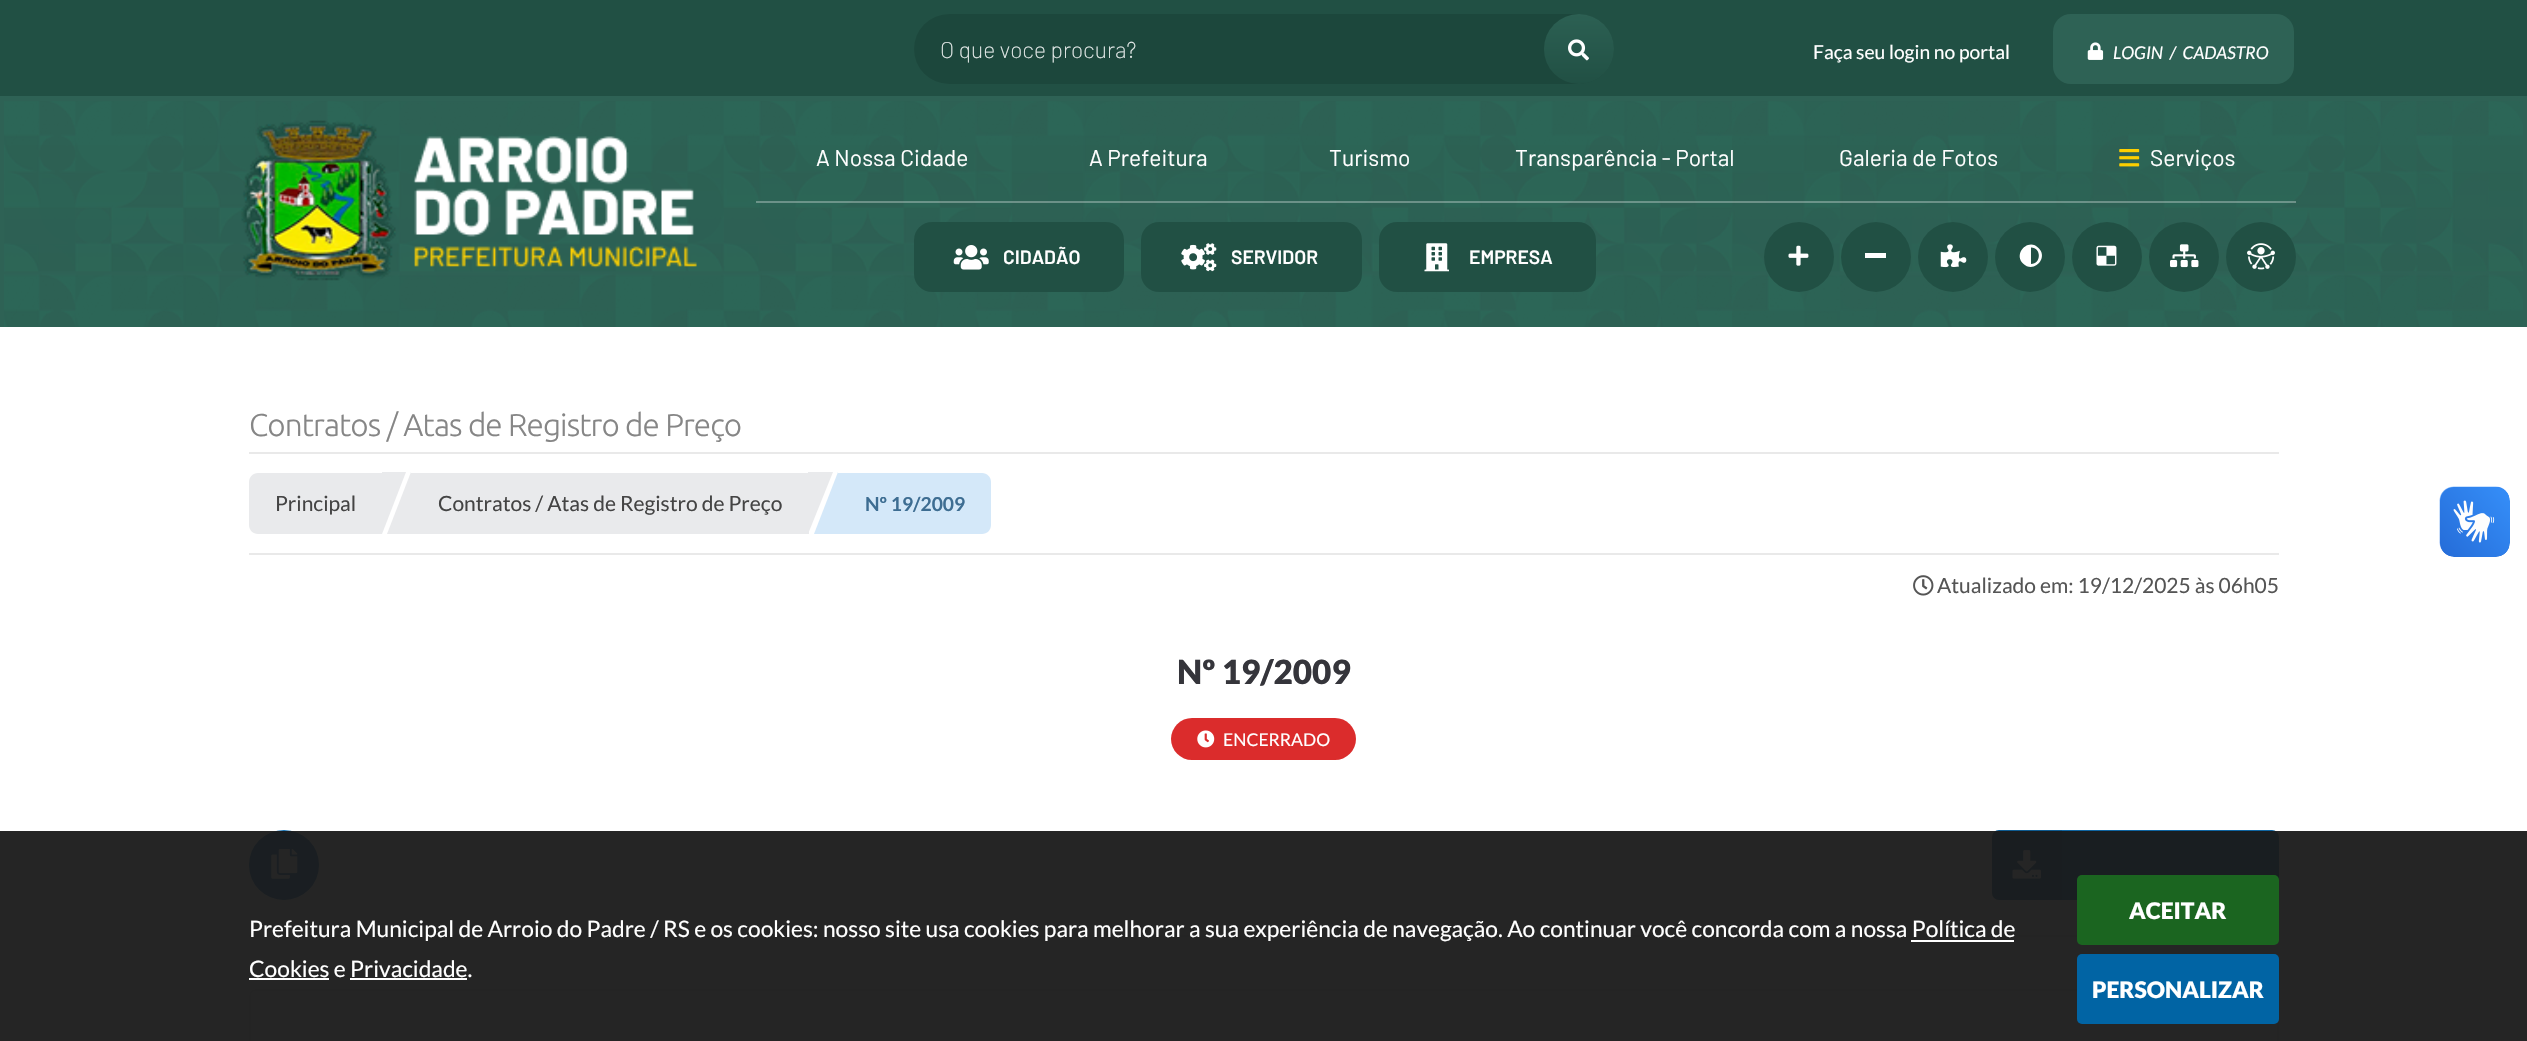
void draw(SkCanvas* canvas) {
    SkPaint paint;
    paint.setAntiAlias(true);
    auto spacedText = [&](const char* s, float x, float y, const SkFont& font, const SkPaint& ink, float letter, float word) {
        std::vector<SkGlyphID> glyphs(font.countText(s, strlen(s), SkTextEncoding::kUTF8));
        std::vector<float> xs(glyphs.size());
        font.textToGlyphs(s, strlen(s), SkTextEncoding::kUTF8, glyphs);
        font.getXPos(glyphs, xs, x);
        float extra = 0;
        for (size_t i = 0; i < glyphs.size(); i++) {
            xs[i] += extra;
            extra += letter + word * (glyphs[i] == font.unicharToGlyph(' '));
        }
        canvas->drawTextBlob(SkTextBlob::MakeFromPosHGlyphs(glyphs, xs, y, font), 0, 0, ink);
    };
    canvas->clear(0xFFFFFFFF);
    paint.setColor(0xFF2E6255);
    canvas->drawRect(SkRect::MakeXYWH(0, 96, 2527, 231), paint);
    canvas->drawImageRect(SkImages::DeferredFromEncodedData(SkData::MakeFromFileName("img1.png")), SkRect::MakeXYWH(4, 101, 2519, 226), SkSamplingOptions());
    paint.setColor(0xFF215044);
    canvas->drawRect(SkRect::MakeXYWH(0, 0, 2527, 96), paint);
    paint.setColor(0xFF1C473C);
    canvas->drawRoundRect(SkRect::MakeXYWH(914, 14, 700, 70), 35, 35, paint);
    SkFont font1(fontMgr->matchFamilyStyle("Barlow", SkFontStyle(200, SkFontStyle::kNormal_Width, SkFontStyle::kUpright_Slant)), 22.75f);
    font1.setSubpixel(true);
    paint.setColor(0xFFE8EDEC);
    canvas->drawString("O que voce procura?", 940, 58, font1, paint);
    {
        const SkColor colors[] = {0xFF2C6053, 0xFF215044};
        const float stops[] = {0, 1};
        const SkPoint ends[] = {{1579, 14}, {1579, 84}};
        paint.setShader(SkGradientShader::MakeLinear(ends, colors, stops, 2, SkTileMode::kClamp));
        paint.setAlpha(255);
    }
    canvas->drawCircle(1579, 49, 35, paint);
    canvas->drawImageRect(SkImages::DeferredFromEncodedData(SkData::MakeFromFileName("img2.png")), SkRect::MakeXYWH(1568, 39, 21, 22), SkSamplingOptions());
    canvas->drawImageRect(SkImages::DeferredFromEncodedData(SkData::MakeFromFileName("img3.png")), SkRect::MakeXYWH(241, 120, 456, 161), SkSamplingOptions());
    paint.setShader(nullptr);
    paint.setColor(0x4DFFFFFF);
    canvas->drawRect(SkRect::MakeXYWH(756, 201, 1540, 2), paint);
    SkFont font2(fontMgr->matchFamilyStyle("Barlow", SkFontStyle::Normal()), 22.75f);
    font2.setSubpixel(true);
    paint.setColor(0xFFFFFFFF);
    canvas->drawString("A Nossa Cidade", 816, 166, font2, paint);
    canvas->drawString("A Prefeitura", 1089, 166, font2, paint);
    canvas->drawString("Turismo", 1329, 166, font2, paint);
    canvas->drawString("Transparência - Portal", 1515, 166, font2, paint);
    canvas->drawString("Galeria de Fotos", 1839, 166, font2, paint);
    canvas->drawImageRect(SkImages::DeferredFromEncodedData(SkData::MakeFromFileName("img4.png")), SkRect::MakeXYWH(2119, 149, 21, 18), SkSamplingOptions());
    canvas->drawString("Serviços", 2150, 166, font2, paint);
    paint.setColor(0xFF215044);
    canvas->drawRoundRect(SkRect::MakeXYWH(914, 222, 210, 70), 18, 18, paint);
    canvas->drawImageRect(SkImages::DeferredFromEncodedData(SkData::MakeFromFileName("img5.png")), SkRect::MakeXYWH(953, 245, 36, 25), SkSamplingOptions());
    SkFont font3(fontMgr->matchFamilyStyle("Barlow", SkFontStyle(600, SkFontStyle::kNormal_Width, SkFontStyle::kUpright_Slant)), 19.25f);
    font3.setSubpixel(true);
    paint.setColor(0xFFFFFFFF);
    canvas->drawString("CIDADÃO", 1003, 264, font3, paint);
    paint.setColor(0xFF215044);
    canvas->drawRoundRect(SkRect::MakeXYWH(1141, 222, 221, 70), 18, 18, paint);
    canvas->drawImageRect(SkImages::DeferredFromEncodedData(SkData::MakeFromFileName("img6.png")), SkRect::MakeXYWH(1181, 243, 36, 29), SkSamplingOptions());
    paint.setColor(0xFFFFFFFF);
    canvas->drawString("SERVIDOR", 1231, 264, font3, paint);
    paint.setColor(0xFF215044);
    canvas->drawRoundRect(SkRect::MakeXYWH(1379, 222, 217, 70), 18, 18, paint);
    canvas->drawImageRect(SkImages::DeferredFromEncodedData(SkData::MakeFromFileName("img7.png")), SkRect::MakeXYWH(1424, 243, 25, 29), SkSamplingOptions());
    paint.setColor(0xFFFFFFFF);
    canvas->drawString("EMPRESA", 1469, 264, font3, paint);
    paint.setColor(0xFF215044);
    canvas->drawCircle(1799, 257, 35, paint);
    canvas->drawImageRect(SkImages::DeferredFromEncodedData(SkData::MakeFromFileName("img8.png")), SkRect::MakeXYWH(1788, 245, 21, 21), SkSamplingOptions());
    canvas->drawCircle(1876, 257, 35, paint);
    paint.setColor(0xFFFFFFFF);
    canvas->drawRect(SkRect::MakeXYWH(1865, 253, 21, 5), paint);
    paint.setColor(0xFF215044);
    canvas->drawCircle(1953, 257, 35, paint);
    canvas->drawImageRect(SkImages::DeferredFromEncodedData(SkData::MakeFromFileName("img9.png")), SkRect::MakeXYWH(1940, 244, 27, 24), SkSamplingOptions());
    canvas->drawCircle(2030, 257, 35, paint);
    paint.setColor(0xFFFFFFFF);
    canvas->drawPath(SkPathBuilder().moveTo(2023, 263.5f).cubicTo(2013, 253.5f, 2028.5f, 237.5f, 2038.5f, 248).cubicTo(2049, 258, 2033.5f, 274, 2023, 263.5f).close().moveTo(2031, 264).cubicTo(2041.5f, 264, 2041.5f, 247.5f, 2031, 247.5f).close().detach(), paint);
    paint.setColor(0xFF215044);
    canvas->drawCircle(2107, 257, 35, paint);
    canvas->drawImageRect(SkImages::DeferredFromEncodedData(SkData::MakeFromFileName("img10.png")), SkRect::MakeXYWH(2096, 245, 21, 21), SkSamplingOptions());
    canvas->drawCircle(2184, 257, 35, paint);
    canvas->drawImageRect(SkImages::DeferredFromEncodedData(SkData::MakeFromFileName("img11.png")), SkRect::MakeXYWH(2170, 244, 29, 24), SkSamplingOptions());
    canvas->drawCircle(2261, 257, 35, paint);
    canvas->drawImageRect(SkImages::DeferredFromEncodedData(SkData::MakeFromFileName("img12.png")), SkRect::MakeXYWH(2247, 243, 28, 27), SkSamplingOptions());
    SkFont font4(fontMgr->matchFamilyStyle("Lato", SkFontStyle::Normal()), 19.25f);
    font4.setSubpixel(true);
    paint.setColor(0xFFFFFFFF);
    canvas->drawString("Faça seu login no portal", 1813, 59, font4, paint);
    paint.setColor(0xFF2E6255);
    canvas->drawRoundRect(SkRect::MakeXYWH(2053, 14, 241, 70), 18, 18, paint);
    canvas->drawImageRect(SkImages::DeferredFromEncodedData(SkData::MakeFromFileName("img13.png")), SkRect::MakeXYWH(2087, 42, 17, 18), SkSamplingOptions());
    SkFont font5(fontMgr->matchFamilyStyle("Lato", SkFontStyle::Italic()), 17.5f);
    font5.setSubpixel(true);
    paint.setColor(0xFFFFFFFF);
    canvas->drawString("LOGIN  /  CADASTRO", 2113, 59, font5, paint);
    canvas->drawImageRect(SkImages::DeferredFromEncodedData(SkData::MakeFromFileName("img14.png")), SkRect::MakeXYWH(2439, 486, 71, 71), SkSamplingOptions());
    canvas->drawImageRect(SkImages::DeferredFromEncodedData(SkData::MakeFromFileName("img15.png")), SkRect::MakeXYWH(2440, 487, 70, 70), SkSamplingOptions());
    paint.setColor(0xFFDFE1E4);
    canvas->drawRect(SkRect::MakeXYWH(249, 935, 1828, 2), paint);
    paint.setColor(0xFF1470B3);
    canvas->drawCircle(284, 865, 35, paint);
    canvas->drawImageRect(SkImages::DeferredFromEncodedData(SkData::MakeFromFileName("img18.png")), SkRect::MakeXYWH(271, 849, 27, 30), SkSamplingOptions());
    paint.setColor(0xFF0F65A2);
    canvas->drawRoundRect(SkRect::MakeXYWH(1992, 830, 287, 70), 7, 7, paint);
    paint.setColor(0x1A000000);
    canvas->drawPath(SkPathBuilder().moveTo(1999, 830).lineTo(2062, 830).lineTo(2062, 900).lineTo(1999, 900).cubicTo(1995, 900, 1992, 897, 1992, 893).lineTo(1992, 837).cubicTo(1992, 833, 1995, 830, 1999, 830).close().detach(), paint);
    canvas->drawImageRect(SkImages::DeferredFromEncodedData(SkData::MakeFromFileName("img19.png")), SkRect::MakeXYWH(2012, 850, 29, 29), SkSamplingOptions());
    paint.setStyle(SkPaint::kStroke_Style);
    paint.setStrokeWidth(2);
    paint.setColor(0xFFE7E9EB);
    canvas->drawRoundRect(SkRect::MakeXYWH(250, 990, 2028, 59), 6, 6, paint);
    paint.setStyle(SkPaint::kFill_Style);
    paint.setColor(0xF2191919);
    canvas->drawRect(SkRect::MakeXYWH(0, 831, 2527, 210), paint);
    SkFont font6(fontMgr->matchFamilyStyle("Lato", SkFontStyle::Normal()), 22.75f);
    font6.setSubpixel(true);
    paint.setColor(0xFFFFFFFF);
    canvas->drawString("Prefeitura Municipal de Arroio do Padre / RS e os cookies: nosso site usa cookies para melhorar a sua experiência de navegação. Ao continuar você concorda com a nossa Política de", 249, 937, font6, paint);
    canvas->drawString("Cookies e Privacidade.", 249, 977, font6, paint);
    canvas->drawRect(SkRect::MakeXYWH(1911, 940, 103, 2), paint);
    canvas->drawRect(SkRect::MakeXYWH(249, 978, 80, 2), paint);
    canvas->drawRect(SkRect::MakeXYWH(350, 978, 117, 2), paint);
    paint.setColor(0xFF1B6520);
    canvas->drawRoundRect(SkRect::MakeXYWH(2077, 875, 202, 70), 5, 5, paint);
    SkFont font7(fontMgr->matchFamilyStyle("Lato", SkFontStyle(900, SkFontStyle::kNormal_Width, SkFontStyle::kUpright_Slant)), 22.75f);
    font7.setSubpixel(true);
    paint.setColor(0xFFFFFFFF);
    canvas->drawString("ACEITAR", 2129, 919, font7, paint);
    paint.setColor(0xFF0164A4);
    canvas->drawRoundRect(SkRect::MakeXYWH(2077, 954, 202, 70), 5, 5, paint);
    paint.setColor(0xFFFFFFFF);
    canvas->drawString("PERSONALIZAR", 2092, 998, font7, paint);
    SkFont font8(fontMgr->matchFamilyStyle("Ubuntu", SkFontStyle(300, SkFontStyle::kNormal_Width, SkFontStyle::kUpright_Slant)), 31.5f);
    font8.setSubpixel(true);
    paint.setColor(0xFF868686);
    spacedText("Contratos / Atas de Registro de Preço", 249, 436, font8, paint, -0.9f, 0);
    paint.setColor(0xFFE9E9E9);
    canvas->drawRect(SkRect::MakeXYWH(249, 452, 2030, 2), paint);
    canvas->drawRect(SkRect::MakeXYWH(249, 553, 2030, 2), paint);
    paint.setColor(0xFFE9EAEC);
    canvas->drawPath(SkPathBuilder().moveTo(258, 473).lineTo(382, 473).lineTo(382, 534).lineTo(258, 534).cubicTo(253, 534, 249, 530, 249, 525).lineTo(249, 482).cubicTo(249, 477, 253, 473, 258, 473).close().detach(), paint);
    SkFont font9(fontMgr->matchFamilyStyle("Lato", SkFontStyle::Normal()), 21);
    font9.setSubpixel(true);
    paint.setColor(0xFF444444);
    canvas->drawString("Principal", 275, 511, font9, paint);
    paint.setColor(0xFFE9EAEC);
    canvas->drawPath(SkPathBuilder().moveTo(382, 472).lineTo(406, 472).lineTo(382, 534).close().detach(), paint);
    canvas->drawRect(SkRect::MakeXYWH(411, 473, 398, 61), paint);
    canvas->drawPath(SkPathBuilder().moveTo(411, 534).lineTo(387, 534).lineTo(411, 472).close().detach(), paint);
    paint.setColor(0xFF444444);
    canvas->drawString("Contratos / Atas de Registro de Preço", 438, 511, font9, paint);
    paint.setColor(0xFFE9EAEC);
    canvas->drawPath(SkPathBuilder().moveTo(808, 472).lineTo(833, 472).lineTo(808, 534).close().detach(), paint);
    paint.setColor(0xFFD4E8F9);
    canvas->drawPath(SkPathBuilder().moveTo(838, 473).lineTo(982, 473).cubicTo(987, 473, 991, 477, 991, 482).lineTo(991, 525).cubicTo(991, 530, 987, 534, 982, 534).lineTo(838, 534).close().detach(), paint);
    canvas->drawPath(SkPathBuilder().moveTo(838, 534).lineTo(814, 534).lineTo(838, 472).close().detach(), paint);
    SkFont font10(fontMgr->matchFamilyStyle("Lato", SkFontStyle::Bold()), 19.25f);
    font10.setSubpixel(true);
    paint.setColor(0xFF3D6D92);
    canvas->drawString("Nº 19/2009", 865, 511, font10, paint);
    canvas->drawImageRect(SkImages::DeferredFromEncodedData(SkData::MakeFromFileName("img16.png")), SkRect::MakeXYWH(1913, 575, 21, 21), SkSamplingOptions());
    paint.setColor(0xFF555555);
    canvas->drawString("Atualizado em: 19/12/2025 às 06h05", 1937, 593, font9, paint);
    SkFont font11(fontMgr->matchFamilyStyle("Lato", SkFontStyle(900, SkFontStyle::kNormal_Width, SkFontStyle::kUpright_Slant)), 33.25f);
    font11.setSubpixel(true);
    paint.setColor(0xFF35353B);
    canvas->drawString("Nº 19/2009", 1177, 684, font11, paint);
    paint.setColor(0xFFDB2C2C);
    canvas->drawRoundRect(SkRect::MakeXYWH(1171, 718, 185, 42), 21, 21, paint);
    canvas->drawImageRect(SkImages::DeferredFromEncodedData(SkData::MakeFromFileName("img17.png")), SkRect::MakeXYWH(1197, 730, 18, 18), SkSamplingOptions());
    SkFont font12(fontMgr->matchFamilyStyle("Lato", SkFontStyle::Normal()), 17.5f);
    font12.setSubpixel(true);
    paint.setColor(0xFFFFFFFF);
    canvas->drawString("ENCERRADO", 1223, 746, font12, paint);
}
